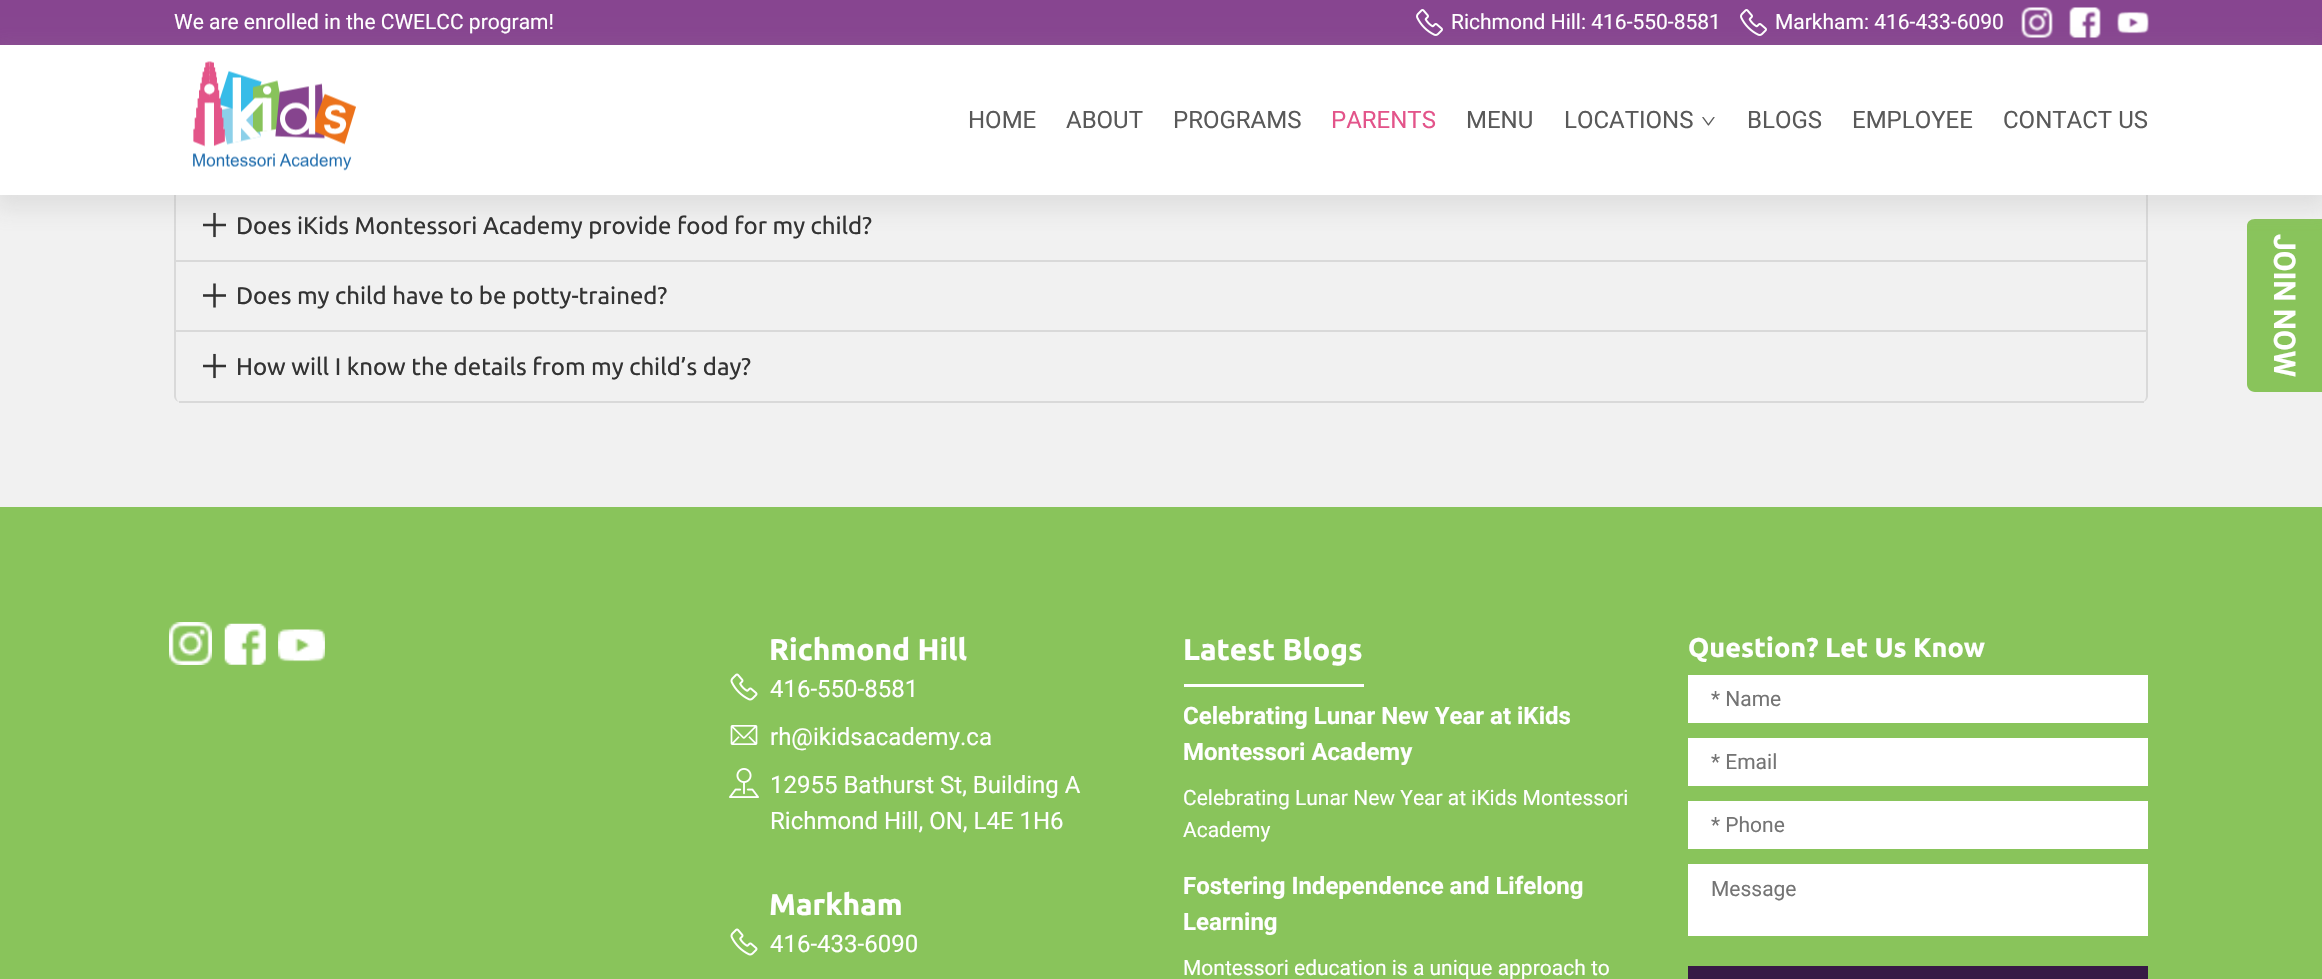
void draw(SkCanvas* canvas) {
    SkPaint paint;
    paint.setAntiAlias(true);
    canvas->clear(0xFFF1F1F1);
    paint.setColor(0xFFD9D9D9);
    canvas->drawPath(SkPathBuilder(SkPathFillType::kEvenOdd).moveTo(180, -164).lineTo(2142, -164).cubicTo(2145, -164, 2148, -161, 2148, -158).lineTo(2148, 396).cubicTo(2148, 399, 2145, 402, 2142, 402).lineTo(180, 402).cubicTo(177, 402, 174, 399, 174, 396).lineTo(174, -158).cubicTo(174, -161, 177, -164, 180, -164).close().moveTo(180, -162).lineTo(2142, -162).cubicTo(2144, -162, 2146, -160, 2146, -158).lineTo(2146, 396).cubicTo(2146, 399, 2144, 402, 2142, 402).lineTo(180, 402).cubicTo(178, 402, 176, 399, 176, 396).lineTo(176, -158).cubicTo(176, -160, 178, -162, 180, -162).close().detach(), paint);
    paint.setColor(0xFF874590);
    canvas->drawRect(SkRect::MakeXYWH(0, 0, 2322, 45), paint);
    SkFont font1(fontMgr->matchFamilyStyle("Roboto", SkFontStyle::Normal()), 21);
    font1.setSubpixel(true);
    paint.setColor(0xFFFFFFFF);
    canvas->drawString("We are enrolled in the CWELCC program!", 174, 29, font1, paint);
    canvas->drawImageRect(SkImages::DeferredFromEncodedData(SkData::MakeFromFileName("img1.png")), SkRect::MakeXYWH(1416, 9, 27, 27), SkSamplingOptions());
    canvas->drawString("Richmond Hill: 416-550-8581", 1451, 29, font1, paint);
    canvas->drawImageRect(SkImages::DeferredFromEncodedData(SkData::MakeFromFileName("img1.png")), SkRect::MakeXYWH(1740, 9, 27, 27), SkSamplingOptions());
    canvas->drawString("Markham: 416-433-6090", 1775, 29, font1, paint);
    canvas->drawImageRect(SkImages::DeferredFromEncodedData(SkData::MakeFromFileName("img2.png")), SkRect::MakeXYWH(2021, 7, 32, 31), SkSamplingOptions());
    canvas->drawImageRect(SkImages::DeferredFromEncodedData(SkData::MakeFromFileName("img3.png")), SkRect::MakeXYWH(2069, 7, 32, 31), SkSamplingOptions());
    canvas->drawImageRect(SkImages::DeferredFromEncodedData(SkData::MakeFromFileName("img4.png")), SkRect::MakeXYWH(2117, 11, 32, 23), SkSamplingOptions());
    canvas->drawImageRect(SkImages::DeferredFromEncodedData(SkData::MakeFromFileName("img7.png")), SkRect::MakeXYWH(203, 212, 23, 26), SkSamplingOptions());
    paint.setColor(0xFF89C45B);
    canvas->drawPath(SkPathBuilder().moveTo(2322, 219).lineTo(2322, 392).lineTo(2255, 392).cubicTo(2250, 392, 2247, 388, 2247, 384).lineTo(2247, 226).cubicTo(2247, 222, 2250, 219, 2255, 219).close().detach(), paint);
    paint.setColor(0x339C9C9C);
    paint.setMaskFilter(SkMaskFilter::MakeBlur(kNormal_SkBlurStyle, 10.5f));
    canvas->drawRect(SkRect::MakeXYWH(-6, 48, 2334, 162), paint);
    paint.setMaskFilter(nullptr);
    paint.setColor(0xFFFFFFFF);
    canvas->drawRect(SkRect::MakeXYWH(0, 45, 2322, 150), paint);
    canvas->drawImageRect(SkImages::DeferredFromEncodedData(SkData::MakeFromFileName("img5.png")), SkRect::MakeXYWH(193, 61, 163, 110), SkSamplingOptions());
    SkFont font2(fontMgr->matchFamilyStyle("Roboto", SkFontStyle::Normal()), 24);
    font2.setSubpixel(true);
    paint.setColor(0xFF595959);
    canvas->drawString("HOME", 968, 128, font2, paint);
    canvas->drawString("ABOUT", 1066, 128, font2, paint);
    canvas->drawString("PROGRAMS", 1173, 128, font2, paint);
    paint.setColor(0xFFE3548A);
    canvas->drawString("PARENTS", 1331, 128, font2, paint);
    paint.setColor(0xFF595959);
    canvas->drawString("MENU", 1466, 128, font2, paint);
    canvas->drawString("LOCATIONS", 1564, 128, font2, paint);
    canvas->drawImageRect(SkImages::DeferredFromEncodedData(SkData::MakeFromFileName("img6.png")), SkRect::MakeXYWH(1702, 117, 13, 9), SkSamplingOptions());
    canvas->drawString("BLOGS", 1747, 128, font2, paint);
    canvas->drawString("EMPLOYEE", 1852, 128, font2, paint);
    canvas->drawString("CONTACT US", 2003, 128, font2, paint);
    paint.setColor(0xFFD9D9D9);
    canvas->drawRect(SkRect::MakeXYWH(176, 260, 1971, 2), paint);
    SkFont font3(fontMgr->matchFamilyStyle("Ubuntu", SkFontStyle::Normal()), 24);
    font3.setSubpixel(true);
    paint.setColor(0xFF333333);
    canvas->drawString("Does iKids Montessori Academy provide food for my child?", 236, 234, font3, paint);
    paint.setColor(0xFFD9D9D9);
    canvas->drawRect(SkRect::MakeXYWH(176, 330, 1971, 2), paint);
    canvas->drawImageRect(SkImages::DeferredFromEncodedData(SkData::MakeFromFileName("img8.png")), SkRect::MakeXYWH(203, 283, 23, 25), SkSamplingOptions());
    paint.setColor(0xFF333333);
    canvas->drawString("Does my child have to be potty-trained?", 236, 304, font3, paint);
    paint.setColor(0xFFD9D9D9);
    canvas->drawRect(SkRect::MakeXYWH(179, 401, 1965, 2), paint);
    canvas->drawImageRect(SkImages::DeferredFromEncodedData(SkData::MakeFromFileName("img7.png")), SkRect::MakeXYWH(203, 353, 23, 26), SkSamplingOptions());
    paint.setColor(0xFF333333);
    canvas->drawString("How will I know the details from my child’s day?", 236, 375, font3, paint);
    SkFont font4(fontMgr->matchFamilyStyle("Roboto", SkFontStyle::Bold()), 30);
    font4.setSubpixel(true);
    paint.setColor(0xFFFFFFFF);
    canvas->save();
    canvas->rotate(90, 2274, 234);
    canvas->drawString("JOIN NOW", 2274, 234, font4, paint);
    canvas->restore();
    paint.setColor(0xFF89C45B);
    canvas->drawRect(SkRect::MakeXYWH(0, 507, 2322, 472), paint);
    canvas->drawImageRect(SkImages::DeferredFromEncodedData(SkData::MakeFromFileName("img9.png")), SkRect::MakeXYWH(169, 622, 43, 43), SkSamplingOptions());
    canvas->drawImageRect(SkImages::DeferredFromEncodedData(SkData::MakeFromFileName("img10.png")), SkRect::MakeXYWH(224, 623, 42, 42), SkSamplingOptions());
    canvas->drawImageRect(SkImages::DeferredFromEncodedData(SkData::MakeFromFileName("img11.png")), SkRect::MakeXYWH(278, 629, 47, 33), SkSamplingOptions());
    SkFont font5(fontMgr->matchFamilyStyle("Ubuntu", SkFontStyle::Bold()), 30);
    font5.setSubpixel(true);
    paint.setColor(0xFFFFFFFF);
    canvas->drawString("Richmond Hill", 769, 660, font5, paint);
    canvas->drawImageRect(SkImages::DeferredFromEncodedData(SkData::MakeFromFileName("img12.png")), SkRect::MakeXYWH(730, 673, 28, 28), SkSamplingOptions());
    canvas->drawString("416-550-8581", 770, 697, font2, paint);
    canvas->drawImageRect(SkImages::DeferredFromEncodedData(SkData::MakeFromFileName("img13.png")), SkRect::MakeXYWH(730, 725, 28, 20), SkSamplingOptions());
    canvas->drawString("rh@ikidsacademy.ca", 770, 745, font2, paint);
    canvas->drawImageRect(SkImages::DeferredFromEncodedData(SkData::MakeFromFileName("img14.png")), SkRect::MakeXYWH(729, 768, 30, 30), SkSamplingOptions());
    canvas->drawString("12955 Bathurst St, Building A", 770, 793, font2, paint);
    canvas->drawString("Richmond Hill, ON, L4E 1H6", 770, 829, font2, paint);
    canvas->drawString("Markham", 769, 915, font5, paint);
    canvas->drawImageRect(SkImages::DeferredFromEncodedData(SkData::MakeFromFileName("img12.png")), SkRect::MakeXYWH(730, 928, 28, 28), SkSamplingOptions());
    canvas->drawString("416-433-6090", 770, 952, font2, paint);
    canvas->drawRect(SkRect::MakeXYWH(1184, 684, 180, 3), paint);
    canvas->drawString("Latest Blogs", 1183, 660, font5, paint);
    SkFont font6(fontMgr->matchFamilyStyle("Roboto", SkFontStyle::Bold()), 24);
    font6.setSubpixel(true);
    canvas->drawString("Celebrating Lunar New Year at iKids", 1183, 724, font6, paint);
    canvas->drawString("Montessori Academy", 1183, 760, font6, paint);
    canvas->drawString("Celebrating Lunar New Year at iKids Montessori", 1183, 805, font1, paint);
    canvas->drawString("Academy", 1183, 837, font1, paint);
    canvas->drawString("Fostering Independence and Lifelong", 1183, 894, font6, paint);
    canvas->drawString("Learning", 1183, 930, font6, paint);
    canvas->drawString("Montessori education is a unique approach to", 1183, 975, font1, paint);
    SkFont font7(fontMgr->matchFamilyStyle("Ubuntu", SkFontStyle::Bold()), 27);
    font7.setSubpixel(true);
    canvas->drawString("Question? Let Us Know", 1688, 657, font7, paint);
    canvas->drawRect(SkRect::MakeXYWH(1688, 675, 460, 48), paint);
    paint.setColor(0xFF747474);
    canvas->drawString("* Name", 1711, 706, font1, paint);
    paint.setColor(0xFFFFFFFF);
    canvas->drawRect(SkRect::MakeXYWH(1688, 738, 460, 48), paint);
    paint.setColor(0xFF747474);
    canvas->drawString("* Email", 1711, 769, font1, paint);
    paint.setColor(0xFFFFFFFF);
    canvas->drawRect(SkRect::MakeXYWH(1688, 801, 460, 48), paint);
    paint.setColor(0xFF747474);
    canvas->drawString("* Phone", 1711, 832, font1, paint);
    paint.setColor(0xFFFFFFFF);
    canvas->drawRect(SkRect::MakeXYWH(1688, 864, 460, 72), paint);
    paint.setColor(0xFF747474);
    canvas->drawString("Message", 1711, 896, font1, paint);
    paint.setColor(0xFF371A45);
    canvas->drawRect(SkRect::MakeXYWH(1688, 966, 460, 13), paint);
}
